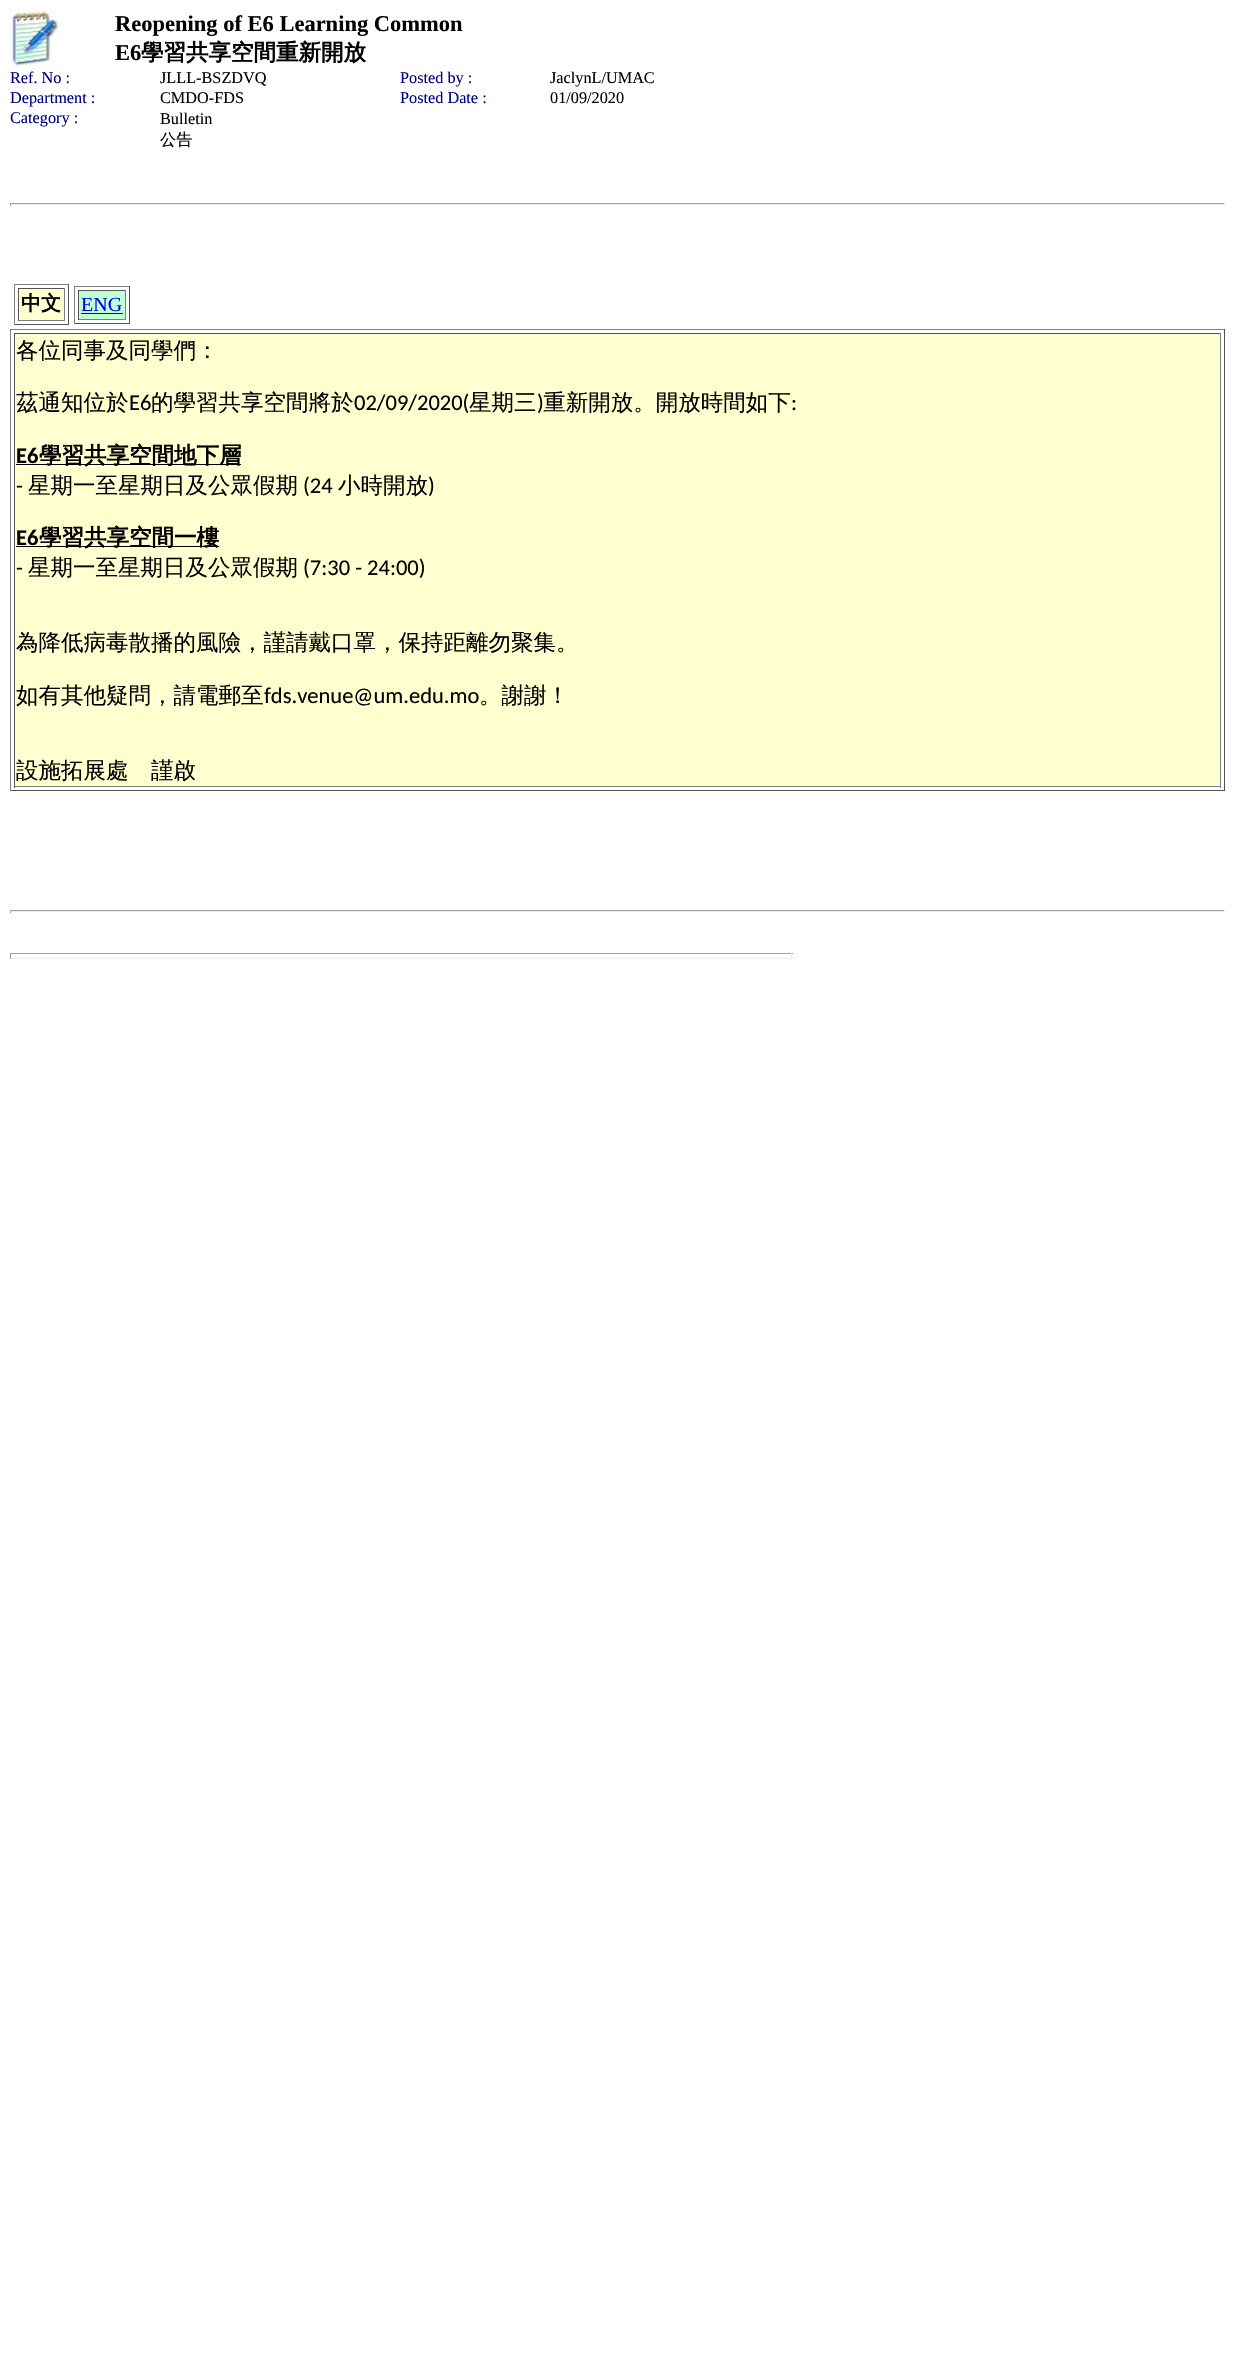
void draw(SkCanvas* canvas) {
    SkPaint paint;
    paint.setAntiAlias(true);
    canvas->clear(0xFFFFFFFF);
    canvas->drawImageRect(SkImages::DeferredFromEncodedData(SkData::MakeFromFileName("img1.png")), SkRect::MakeXYWH(10, 10, 49, 56), SkSamplingOptions());
    SkFont font1(fontMgr->matchFamilyStyle("Liberation Serif", SkFontStyle::Bold()), 22.5f);
    font1.setSubpixel(true);
    paint.setColor(0xFF000000);
    canvas->drawString("Reopening of E6 Learning Common", 115, 31, font1, paint);
    canvas->drawString("E6", 115, 60, font1, paint);
    SkFont font2(fontMgr->matchFamilyStyle("WenQuanYi Zen Hei", SkFontStyle::Bold()), 22.5f);
    font2.setSubpixel(true);
    canvas->drawString("學習共享空間重新開放", 141, 60, font2, paint);
    SkFont font3(fontMgr->matchFamilyStyle("Liberation Serif", SkFontStyle::Normal()), 16.25f);
    font3.setSubpixel(true);
    paint.setColor(0xFF000080);
    canvas->drawString("Ref. No :", 10, 83, font3, paint);
    paint.setColor(0xFF000000);
    canvas->drawString("JLLL-BSZDVQ", 160, 83, font3, paint);
    paint.setColor(0xFF000080);
    canvas->drawString("Posted by :", 400, 83, font3, paint);
    paint.setColor(0xFF000000);
    canvas->drawString("JaclynL/UMAC", 550, 83, font3, paint);
    paint.setColor(0xFF000080);
    canvas->drawString("Department :", 10, 103, font3, paint);
    paint.setColor(0xFF000000);
    canvas->drawString("CMDO-FDS", 160, 103, font3, paint);
    paint.setColor(0xFF000080);
    canvas->drawString("Posted Date :", 400, 103, font3, paint);
    paint.setColor(0xFF000000);
    canvas->drawString("01/09/2020", 550, 103, font3, paint);
    paint.setColor(0xFF000080);
    canvas->drawString("Category :", 10, 123, font3, paint);
    paint.setColor(0xFF000000);
    canvas->drawString("Bulletin", 160, 124, font3, paint);
    SkFont font4(fontMgr->matchFamilyStyle("WenQuanYi Zen Hei", SkFontStyle(500, SkFontStyle::kNormal_Width, SkFontStyle::kUpright_Slant)), 16.25f);
    font4.setSubpixel(true);
    canvas->drawString("公告", 160, 145, font4, paint);
    paint.setColor(0xFF9F9F9F);
    canvas->drawRect(SkRect::MakeXYWH(10, 203, 1215, 1), paint);
    paint.setColor(0xFFEEEEEE);
    canvas->drawRect(SkRect::MakeXYWH(1224, 203, 1, 3), paint);
    canvas->drawRect(SkRect::MakeXYWH(10, 204, 1215, 1), paint);
    paint.setColor(0xFF9F9F9F);
    canvas->drawRect(SkRect::MakeXYWH(10, 203, 1, 3), paint);
    paint.setColor(0xFF808080);
    canvas->drawRect(SkRect::MakeXYWH(14, 284, 55, 1), paint);
    paint.setColor(0xFF555555);
    canvas->drawRect(SkRect::MakeXYWH(68, 284, 1, 41), paint);
    canvas->drawRect(SkRect::MakeXYWH(14, 324, 55, 1), paint);
    paint.setColor(0xFF808080);
    canvas->drawRect(SkRect::MakeXYWH(14, 284, 1, 41), paint);
    paint.setColor(0xFFFFFFD0);
    canvas->drawRect(SkRect::MakeXYWH(19, 289, 45, 31), paint);
    paint.setColor(0xFF555555);
    canvas->drawRect(SkRect::MakeXYWH(18, 288, 47, 1), paint);
    paint.setColor(0xFF808080);
    canvas->drawRect(SkRect::MakeXYWH(64, 288, 1, 33), paint);
    canvas->drawRect(SkRect::MakeXYWH(18, 320, 47, 1), paint);
    paint.setColor(0xFF555555);
    canvas->drawRect(SkRect::MakeXYWH(18, 288, 1, 33), paint);
    SkFont font5(fontMgr->matchFamilyStyle("WenQuanYi Zen Hei", SkFontStyle::Bold()), 20);
    font5.setSubpixel(true);
    paint.setColor(0xFF000000);
    canvas->drawString("中文", 21, 310, font5, paint);
    paint.setColor(0xFF808080);
    canvas->drawRect(SkRect::MakeXYWH(74, 286, 56, 1), paint);
    paint.setColor(0xFF555555);
    canvas->drawRect(SkRect::MakeXYWH(129, 286, 1, 38), paint);
    canvas->drawRect(SkRect::MakeXYWH(74, 323, 56, 1), paint);
    paint.setColor(0xFF808080);
    canvas->drawRect(SkRect::MakeXYWH(74, 286, 1, 38), paint);
    paint.setColor(0xFFC1FFD5);
    canvas->drawRect(SkRect::MakeXYWH(79, 291, 46, 28), paint);
    paint.setColor(0xFF555555);
    canvas->drawRect(SkRect::MakeXYWH(78, 290, 48, 1), paint);
    paint.setColor(0xFF808080);
    canvas->drawRect(SkRect::MakeXYWH(125, 290, 1, 30), paint);
    canvas->drawRect(SkRect::MakeXYWH(78, 319, 48, 1), paint);
    paint.setColor(0xFF555555);
    canvas->drawRect(SkRect::MakeXYWH(78, 290, 1, 30), paint);
    SkFont font6(fontMgr->matchFamilyStyle("Liberation Serif", SkFontStyle::Normal()), 20);
    font6.setSubpixel(true);
    paint.setColor(0xFF0000EE);
    canvas->drawString("ENG", 81, 311, font6, paint);
    canvas->drawRect(SkRect::MakeXYWH(81, 313, 42, 1), paint);
    paint.setColor(0xFF808080);
    canvas->drawRect(SkRect::MakeXYWH(10, 329, 1215, 1), paint);
    paint.setColor(0xFF555555);
    canvas->drawRect(SkRect::MakeXYWH(1224, 329, 1, 462), paint);
    canvas->drawRect(SkRect::MakeXYWH(10, 790, 1215, 1), paint);
    paint.setColor(0xFF808080);
    canvas->drawRect(SkRect::MakeXYWH(10, 329, 1, 462), paint);
    paint.setColor(0xFFFFFFD0);
    canvas->drawRect(SkRect::MakeXYWH(15, 334, 1205, 454), paint);
    paint.setColor(0xFF555555);
    canvas->drawRect(SkRect::MakeXYWH(14, 333, 1207, 1), paint);
    paint.setColor(0xFF808080);
    canvas->drawRect(SkRect::MakeXYWH(1220, 333, 1, 455), paint);
    canvas->drawRect(SkRect::MakeXYWH(14, 786, 1207, 1), paint);
    paint.setColor(0xFF555555);
    canvas->drawRect(SkRect::MakeXYWH(14, 333, 1, 455), paint);
    SkFont font7(fontMgr->matchFamilyStyle("WenQuanYi Zen Hei", SkFontStyle(500, SkFontStyle::kNormal_Width, SkFontStyle::kUpright_Slant)), 22.5f);
    font7.setSubpixel(true);
    paint.setColor(0xFF000000);
    canvas->drawString("各位同事及同學們：", 16, 358, font7, paint);
    canvas->drawString("茲通知位於", 16, 410, font7, paint);
    canvas->drawString("的學習共享空間將於", 151, 410, font7, paint);
    SkFont font8(fontMgr->matchFamilyStyle("Carlito", SkFontStyle::Normal()), 22.5f);
    font8.setSubpixel(true);
    canvas->drawString("02/09/2020(", 354, 410, font8, paint);
    canvas->drawString("星期三 重新開放。開放時間如下", 469, 410, font7, paint);
    canvas->drawString("E6", 129, 410, font8, paint);
    canvas->drawString(")", 537, 410, font8, paint);
    canvas->drawString(":", 791, 410, font8, paint);
    SkFont font9(fontMgr->matchFamilyStyle("Carlito", SkFontStyle::Bold()), 22.5f);
    font9.setSubpixel(true);
    canvas->drawString("E6", 16, 463, font9, paint);
    canvas->drawRect(SkRect::MakeXYWH(16, 464, 225, 1), paint);
    canvas->drawString("學習共享空間地下層", 39, 463, font2, paint);
    canvas->drawString("-", 16, 493, font8, paint);
    canvas->drawString("星期一至星期日及公眾假期", 28, 493, font7, paint);
    canvas->drawString("(24", 303, 493, font8, paint);
    canvas->drawString("小時開放", 338, 493, font7, paint);
    canvas->drawString(")", 428, 493, font8, paint);
    canvas->drawString("E6", 16, 545, font9, paint);
    canvas->drawRect(SkRect::MakeXYWH(16, 546, 203, 1), paint);
    canvas->drawString("學習共享空間一樓", 39, 545, font2, paint);
    canvas->drawString("-", 16, 575, font8, paint);
    canvas->drawString("星期一至星期日及公眾假期", 28, 575, font7, paint);
    canvas->drawString("(7:30 - 24:00)", 303, 575, font8, paint);
    canvas->drawString("為降低病毒散播的風險，謹請戴口罩，保持距離勿聚集。", 16, 650, font7, paint);
    canvas->drawString("如有其他疑問，請電郵至", 16, 703, font7, paint);
    canvas->drawString("fds.venue@um.edu.mo", 264, 703, font8, paint);
    canvas->drawString("。謝謝！", 479, 703, font7, paint);
    canvas->drawString("設施拓展處　謹啟", 16, 778, font7, paint);
    paint.setColor(0xFF9F9F9F);
    canvas->drawRect(SkRect::MakeXYWH(10, 910, 1215, 1), paint);
    paint.setColor(0xFFEEEEEE);
    canvas->drawRect(SkRect::MakeXYWH(1224, 910, 1, 3), paint);
    canvas->drawRect(SkRect::MakeXYWH(10, 911, 1215, 1), paint);
    paint.setColor(0xFF9F9F9F);
    canvas->drawRect(SkRect::MakeXYWH(10, 910, 1, 3), paint);
    canvas->drawRect(SkRect::MakeXYWH(10, 953, 783, 1), paint);
    paint.setColor(0xFFEEEEEE);
    canvas->drawRect(SkRect::MakeXYWH(791, 953, 1, 6), paint);
    canvas->drawRect(SkRect::MakeXYWH(10, 958, 783, 1), paint);
    paint.setColor(0xFF9F9F9F);
    canvas->drawRect(SkRect::MakeXYWH(10, 953, 1, 6), paint);
}
